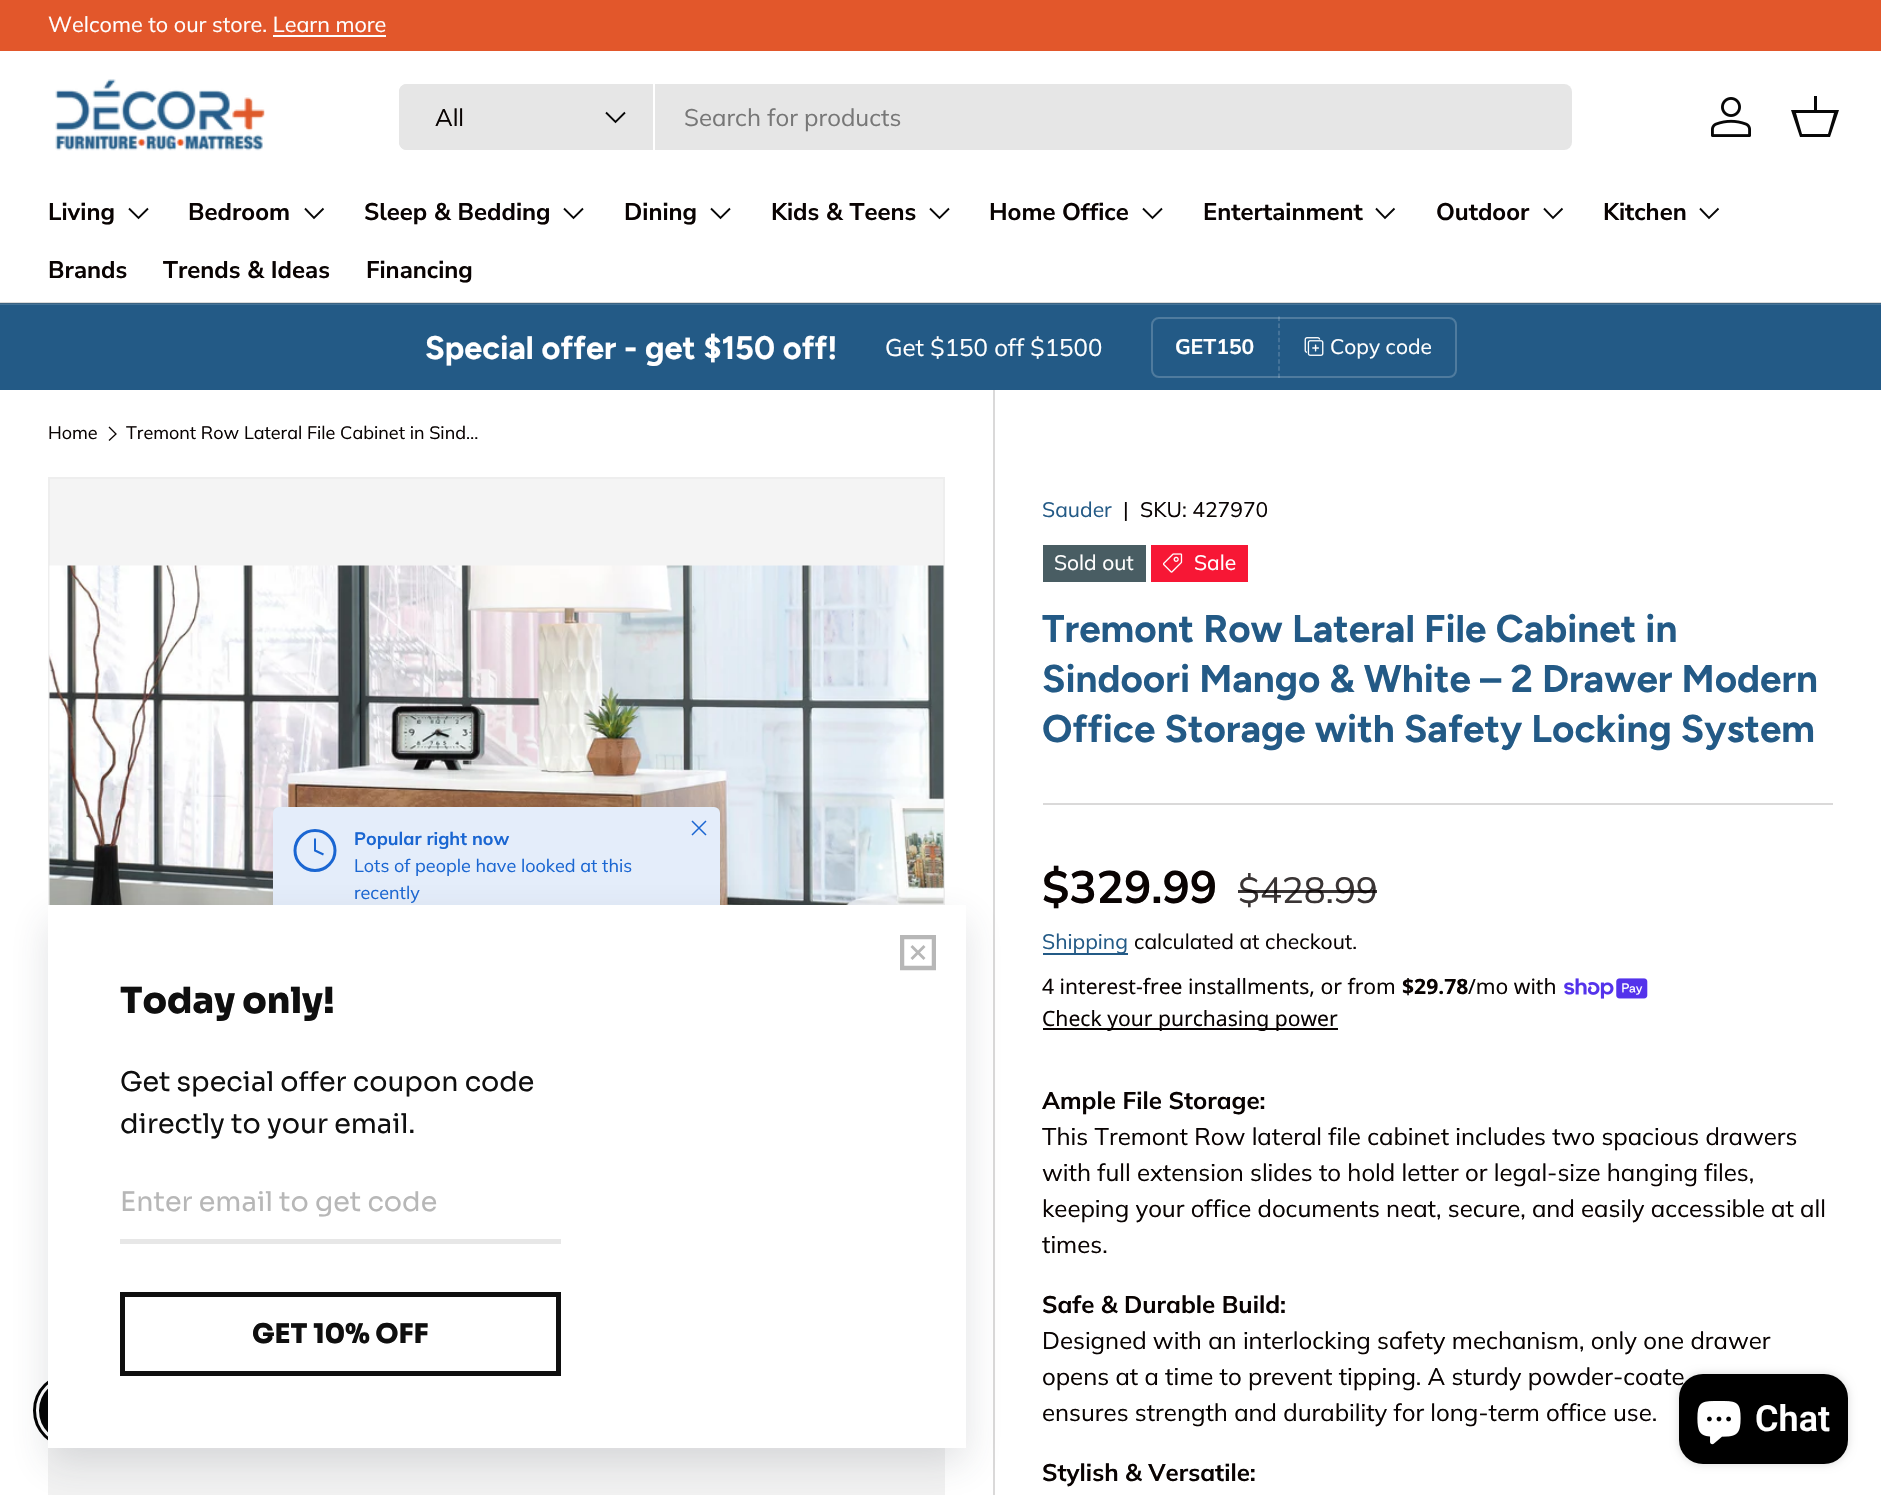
void draw(SkCanvas* canvas) {
    SkPaint paint;
    paint.setAntiAlias(true);
    canvas->clear(0xFFFFFFFF);
    paint.setColor(0xFFDADADA);
    canvas->drawRect(SkRect::MakeXYWH(0, 302, 1881, 1), paint);
    paint.setColor(0xFFE2572B);
    canvas->drawRect(SkRect::MakeXYWH(0, 0, 1881, 51), paint);
    SkFont font1(fontMgr->matchFamilyStyle("Muli", SkFontStyle::Normal()), 21.6f);
    font1.setSubpixel(true);
    paint.setColor(0xFFFFFFFF);
    canvas->drawString("Welcome to our store. Learn more", 48, 32, font1, paint);
    canvas->drawRect(SkRect::MakeXYWH(273, 35, 113, 2), paint);
    canvas->drawImageRect(SkImages::DeferredFromEncodedData(SkData::MakeFromFileName("img1.png")), SkRect::MakeXYWH(55, 79, 210, 72), SkSamplingOptions());
    paint.setColor(0xFFE6E6E6);
    canvas->drawRoundRect(SkRect::MakeXYWH(399, 84, 1173, 66), 8, 8, paint);
    canvas->drawPath(SkPathBuilder().moveTo(407, 84).lineTo(654, 84).lineTo(654, 150).lineTo(407, 150).cubicTo(402.5f, 150, 399, 146.5f, 399, 142).lineTo(399, 92).cubicTo(399, 87.5f, 402.5f, 84, 407, 84).close().detach(), paint);
    paint.setColor(0xFFFFFFFF);
    canvas->drawRect(SkRect::MakeXYWH(653, 84, 2, 66), paint);
    SkFont font2(fontMgr->matchFamilyStyle("Muli", SkFontStyle::Normal()), 24);
    font2.setSubpixel(true);
    paint.setColor(0xFF090302);
    canvas->drawString("All", 435, 126, font2, paint);
    paint.setStyle(SkPaint::kStroke_Style);
    paint.setStrokeWidth(1.9f);
    paint.setColor(0xFF070707);
    canvas->drawPath(SkPathBuilder().moveTo(625, 112.5f).lineTo(615.5f, 122).lineTo(606, 112.5f).detach(), paint);
    paint.setStyle(SkPaint::kFill_Style);
    paint.setColor(0xFF777777);
    canvas->drawString("Search for products", 684, 126, font2, paint);
    canvas->drawImageRect(SkImages::DeferredFromEncodedData(SkData::MakeFromFileName("img2.png")), SkRect::MakeXYWH(1711, 97, 40, 40), SkSamplingOptions());
    paint.setColor(0xFF070707);
    canvas->drawPath(SkPathBuilder().moveTo(1814, 110).lineTo(1814, 96).lineTo(1817, 96).lineTo(1817, 110).lineTo(1839, 110).lineTo(1830, 137).lineTo(1800, 137).lineTo(1791, 110).close().moveTo(1796, 113).lineTo(1802, 134).lineTo(1828, 134).lineTo(1834, 113).close().detach(), paint);
    SkFont font3(fontMgr->matchFamilyStyle("Nunito Sans", SkFontStyle::Bold()), 24);
    font3.setSubpixel(true);
    paint.setColor(0xFF090302);
    canvas->drawString("Living", 48, 220, font3, paint);
    paint.setStyle(SkPaint::kStroke_Style);
    paint.setColor(0xFF070707);
    canvas->drawPath(SkPathBuilder().moveTo(148, 208.5f).lineTo(138.5f, 218).lineTo(129, 208.5f).detach(), paint);
    paint.setStyle(SkPaint::kFill_Style);
    paint.setColor(0xFF090302);
    canvas->drawString("Bedroom", 188, 220, font3, paint);
    paint.setStyle(SkPaint::kStroke_Style);
    paint.setColor(0xFF070707);
    canvas->drawPath(SkPathBuilder().moveTo(323.5f, 208.5f).lineTo(314, 218).lineTo(305, 208.5f).detach(), paint);
    paint.setStyle(SkPaint::kFill_Style);
    paint.setColor(0xFF090302);
    canvas->drawString("Sleep & Bedding", 364, 220, font3, paint);
    paint.setStyle(SkPaint::kStroke_Style);
    paint.setColor(0xFF070707);
    canvas->drawPath(SkPathBuilder().moveTo(583, 208.5f).lineTo(573.5f, 218).lineTo(564, 208.5f).detach(), paint);
    paint.setStyle(SkPaint::kFill_Style);
    paint.setColor(0xFF090302);
    canvas->drawString("Dining", 624, 220, font3, paint);
    paint.setStyle(SkPaint::kStroke_Style);
    paint.setColor(0xFF070707);
    canvas->drawPath(SkPathBuilder().moveTo(730, 208.5f).lineTo(720.5f, 218).lineTo(711, 208.5f).detach(), paint);
    paint.setStyle(SkPaint::kFill_Style);
    paint.setColor(0xFF090302);
    canvas->drawString("Kids & Teens", 771, 220, font3, paint);
    paint.setStyle(SkPaint::kStroke_Style);
    paint.setColor(0xFF070707);
    canvas->drawPath(SkPathBuilder().moveTo(949, 208.5f).lineTo(939.5f, 218).lineTo(930, 208.5f).detach(), paint);
    paint.setStyle(SkPaint::kFill_Style);
    paint.setColor(0xFF090302);
    canvas->drawString("Home Office", 989, 220, font3, paint);
    paint.setStyle(SkPaint::kStroke_Style);
    paint.setColor(0xFF070707);
    canvas->drawPath(SkPathBuilder().moveTo(1162, 208.5f).lineTo(1152.5f, 218).lineTo(1143, 208.5f).detach(), paint);
    paint.setStyle(SkPaint::kFill_Style);
    paint.setColor(0xFF090302);
    canvas->drawString("Entertainment", 1203, 220, font3, paint);
    paint.setStyle(SkPaint::kStroke_Style);
    paint.setColor(0xFF070707);
    canvas->drawPath(SkPathBuilder().moveTo(1394.5f, 208.5f).lineTo(1385, 218).lineTo(1376, 208.5f).detach(), paint);
    paint.setStyle(SkPaint::kFill_Style);
    paint.setColor(0xFF090302);
    canvas->drawString("Outdoor", 1436, 220, font3, paint);
    paint.setStyle(SkPaint::kStroke_Style);
    paint.setColor(0xFF070707);
    canvas->drawPath(SkPathBuilder().moveTo(1562.5f, 208.5f).lineTo(1553, 218).lineTo(1544, 208.5f).detach(), paint);
    paint.setStyle(SkPaint::kFill_Style);
    paint.setColor(0xFF090302);
    canvas->drawString("Kitchen", 1603, 220, font3, paint);
    paint.setStyle(SkPaint::kStroke_Style);
    paint.setColor(0xFF070707);
    canvas->drawPath(SkPathBuilder().moveTo(1718.5f, 208.5f).lineTo(1709, 218).lineTo(1700, 208.5f).detach(), paint);
    paint.setStyle(SkPaint::kFill_Style);
    paint.setColor(0xFF090302);
    canvas->drawString("Brands", 48, 278, font3, paint);
    canvas->drawString("Trends & Ideas", 163, 278, font3, paint);
    canvas->drawString("Financing", 366, 278, font3, paint);
    paint.setColor(0xFF235A86);
    canvas->drawRect(SkRect::MakeXYWH(0, 305, 1881, 85), paint);
    paint.setColor(0xFF447398);
    canvas->drawRect(SkRect::MakeXYWH(0, 304, 1881, 1), paint);
    paint.setColor(0xFF3B6382);
    canvas->drawRect(SkRect::MakeXYWH(0, 303, 1881, 1), paint);
    SkFont font4(fontMgr->matchFamilyStyle("Figtree", SkFontStyle::Bold()), 32.5f);
    font4.setSubpixel(true);
    paint.setColor(0xFFFFFFFF);
    canvas->drawString("Special offer - get $150 off!", 425, 359, font4, paint);
    canvas->drawString("Get $150 off $1500", 885, 356, font2, paint);
    paint.setStyle(SkPaint::kStroke_Style);
    paint.setStrokeWidth(2);
    paint.setColor(0xFF4F7B9E);
    canvas->drawRoundRect(SkRect::MakeXYWH(1152, 318, 304, 59), 7, 7, paint);
    SkFont font5(fontMgr->matchFamilyStyle("Muli", SkFontStyle::Bold()), 21.1f);
    font5.setSubpixel(true);
    paint.setStyle(SkPaint::kFill_Style);
    paint.setColor(0xFFFFFFFF);
    canvas->drawString("GET150", 1175, 354, font5, paint);
    paint.setStyle(SkPaint::kStroke_Style);
    paint.setStrokeWidth(1.5f);
    paint.setColor(0x33FFFFFF);
    paint.setPathEffect(SkDashPathEffect::Make({{4.5f, 2.62f}}, 0));
    canvas->drawPath(SkPathBuilder().moveTo(1279, 316.5f).lineTo(1279, 378).detach(), paint);
    paint.setPathEffect(nullptr);
    canvas->drawImageRect(SkImages::DeferredFromEncodedData(SkData::MakeFromFileName("img3.png")), SkRect::MakeXYWH(1304, 337, 20, 19), SkSamplingOptions());
    SkFont font6(fontMgr->matchFamilyStyle("Muli", SkFontStyle::Normal()), 21);
    font6.setSubpixel(true);
    paint.setStyle(SkPaint::kFill_Style);
    paint.setColor(0xFFFFFFFF);
    canvas->drawString("Copy code", 1330, 354, font6, paint);
    SkFont font7(fontMgr->matchFamilyStyle("Muli", SkFontStyle::Normal()), 18);
    font7.setSubpixel(true);
    paint.setColor(0xFF090302);
    canvas->drawString("Home", 48, 439, font7, paint);
    paint.setStyle(SkPaint::kStroke_Style);
    paint.setStrokeWidth(1.3f);
    canvas->drawPath(SkPathBuilder().moveTo(109, 427).lineTo(116, 434).lineTo(109, 440.5f).detach(), paint);
    paint.setStyle(SkPaint::kFill_Style);
    canvas->drawString("Tremont Row Lateral File Cabinet in Sind…", 126, 439, font7, paint);
    paint.setColor(0xFFF4F4F4);
    canvas->drawRect(SkRect::MakeXYWH(50, 479, 893, 87), paint);
    paint.setStyle(SkPaint::kStroke_Style);
    paint.setStrokeWidth(2);
    paint.setColor(0xFFEEEEEE);
    canvas->drawRect(SkRect::MakeXYWH(49, 478, 895, 894), paint);
    canvas->drawImageRect(SkImages::DeferredFromEncodedData(SkData::MakeFromFileName("img4.png")), SkRect::MakeXYWH(49, 565, 895, 340), SkSamplingOptions());
    paint.setStyle(SkPaint::kFill_Style);
    paint.setColor(0x14212B36);
    paint.setMaskFilter(SkMaskFilter::MakeBlur(kNormal_SkBlurStyle, 3));
    canvas->drawRoundRect(SkRect::MakeXYWH(273, 810, 447, 120), 6, 6, paint);
    paint.setMaskFilter(nullptr);
    paint.setColor(0xFFE4EDFA);
    canvas->drawRoundRect(SkRect::MakeXYWH(273, 807, 447, 120), 6, 6, paint);
    paint.setStyle(SkPaint::kStroke_Style);
    paint.setStrokeWidth(3);
    paint.setColor(0xFF1A66D2);
    canvas->drawCircle(315, 850.5f, 20, paint);
    paint.setStrokeWidth(2);
    canvas->drawPath(SkPathBuilder().moveTo(315, 838.5f).lineTo(315, 850.5f).lineTo(323.5f, 854.5f).detach(), paint);
    SkFont font8(fontMgr->matchFamilyStyle("Muli", SkFontStyle::Bold()), 18);
    font8.setSubpixel(true);
    paint.setStyle(SkPaint::kFill_Style);
    canvas->drawString("Popular right now", 354, 845, font8, paint);
    canvas->drawString("Lots of people have looked at this", 354, 872, font7, paint);
    canvas->drawString("recently", 354, 899, font7, paint);
    paint.setStyle(SkPaint::kStroke_Style);
    paint.setStrokeWidth(1.5f);
    paint.setStrokeJoin(SkPaint::kRound_Join);
    canvas->drawPath(SkPathBuilder().moveTo(692, 835).lineTo(706, 821).moveTo(692, 821).lineTo(706, 835).detach(), paint);
    paint.setStyle(SkPaint::kFill_Style);
    paint.setColor(0xFFDAD9D9);
    canvas->drawRect(SkRect::MakeXYWH(993, 390, 2, 1105), paint);
    SkFont font9(fontMgr->matchFamilyStyle("Muli", SkFontStyle::Normal()), 21.1f);
    font9.setSubpixel(true);
    paint.setColor(0xFF235A86);
    canvas->drawString("Sauder", 1042, 517, font9, paint);
    paint.setColor(0xFF090302);
    canvas->drawString("|", 1123, 517, font9, paint);
    canvas->drawString("SKU: 427970", 1140, 517, font9, paint);
    paint.setColor(0xFF495D63);
    canvas->drawRect(SkRect::MakeXYWH(1043, 545, 103, 37), paint);
    paint.setColor(0xFFFFFFFF);
    canvas->drawString("Sold out", 1054, 570, font6, paint);
    paint.setColor(0xFFF71735);
    canvas->drawRect(SkRect::MakeXYWH(1151, 545, 97, 37), paint);
    canvas->drawImageRect(SkImages::DeferredFromEncodedData(SkData::MakeFromFileName("img5.png")), SkRect::MakeXYWH(1163, 553, 20, 20), SkSamplingOptions());
    paint.setColor(0xFFFFFFFF);
    canvas->drawString("Sale", 1194, 570, font6, paint);
    SkFont font10(fontMgr->matchFamilyStyle("Figtree", SkFontStyle::Bold()), 38.6f);
    font10.setSubpixel(true);
    paint.setColor(0xFF235A86);
    canvas->drawString("Tremont Row Lateral File Cabinet in", 1042, 642, font10, paint);
    canvas->drawString("Sindoori Mango & White – 2 Drawer Modern", 1042, 692, font10, paint);
    canvas->drawString("Office Storage with Safety Locking System", 1042, 742, font10, paint);
    paint.setColor(0xFFDAD9D9);
    canvas->drawRect(SkRect::MakeXYWH(1043, 803, 790, 2), paint);
    SkFont font11(fontMgr->matchFamilyStyle("Muli", SkFontStyle::Bold()), 45.5f);
    font11.setSubpixel(true);
    paint.setColor(0xFF090302);
    canvas->drawString("$329.99", 1042, 903, font11, paint);
    SkFont font12(fontMgr->matchFamilyStyle("Muli", SkFontStyle::Normal()), 36.5f);
    font12.setSubpixel(true);
    paint.setColor(0xFF3A3535);
    canvas->drawString("$428.99", 1238, 903, font12, paint);
    paint.setColor(0xCC090302);
    canvas->drawRect(SkRect::MakeXYWH(1238, 890, 139, 3), paint);
    paint.setColor(0xFF235A86);
    canvas->drawRect(SkRect::MakeXYWH(1043, 953, 85, 2), paint);
    canvas->drawString("Shipping", 1042, 949, font9, paint);
    paint.setColor(0xFF090302);
    canvas->drawString("calculated at checkout.", 1134, 949, font9, paint);
    SkFont font13(fontMgr->matchFamilyStyle("Noto Sans", SkFontStyle::Normal()), 21.1f);
    font13.setSubpixel(true);
    canvas->drawString("4 interest-free installments, or from", 1042, 994, font13, paint);
    SkFont font14(fontMgr->matchFamilyStyle("Noto Sans", SkFontStyle::Bold()), 21.1f);
    font14.setSubpixel(true);
    canvas->drawString("$29.78", 1402, 994, font14, paint);
    canvas->drawString("/mo with", 1468, 994, font13, paint);
    canvas->drawImageRect(SkImages::DeferredFromEncodedData(SkData::MakeFromFileName("img6.png")), SkRect::MakeXYWH(1564, 978, 84, 21), SkSamplingOptions());
    canvas->drawRect(SkRect::MakeXYWH(1043, 1028, 295, 2), paint);
    canvas->drawString("Check your purchasing power", 1042, 1026, font13, paint);
    SkFont font15(fontMgr->matchFamilyStyle("Muli", SkFontStyle::Bold()), 24);
    font15.setSubpixel(true);
    canvas->drawString("Ample File Storage:", 1042, 1109, font15, paint);
    canvas->drawString("This Tremont Row lateral file cabinet includes two spacious drawers", 1042, 1145, font2, paint);
    canvas->drawString("with full extension slides to hold letter or legal-size hanging files,", 1042, 1181, font2, paint);
    canvas->drawString("keeping your office documents neat, secure, and easily accessible at all", 1042, 1217, font2, paint);
    canvas->drawString("times.", 1042, 1253, font2, paint);
    canvas->drawString("Safe & Durable Build:", 1042, 1313, font15, paint);
    canvas->drawString("Designed with an interlocking safety mechanism, only one drawer", 1042, 1349, font2, paint);
    canvas->drawString("opens at a time to prevent tipping. A sturdy powder-coate", 1042, 1385, font2, paint);
    canvas->drawString("ensures strength and durability for long-term office use.", 1042, 1421, font2, paint);
    canvas->drawString("Stylish & Versatile:", 1042, 1481, font15, paint);
    paint.setColor(0xFFF2F2F2);
    canvas->drawRect(SkRect::MakeXYWH(48, 1448, 897, 47), paint);
    paint.setStyle(SkPaint::kStroke_Style);
    paint.setStrokeWidth(3);
    paint.setStrokeJoin(SkPaint::kMiter_Join);
    paint.setColor(0xFF000000);
    canvas->drawCircle(70.5f, 1410.5f, 36, paint);
    paint.setStyle(SkPaint::kFill_Style);
    canvas->drawCircle(70.5f, 1410.5f, 30.5f, paint);
    paint.setStyle(SkPaint::kStroke_Style);
    paint.setStrokeWidth(2);
    canvas->drawCircle(70.5f, 1410.5f, 30.5f, paint);
    paint.setStyle(SkPaint::kFill_Style);
    paint.setColor(0x26363D4D);
    paint.setMaskFilter(SkMaskFilter::MakeBlur(kNormal_SkBlurStyle, 18));
    canvas->drawRect(SkRect::MakeXYWH(48, 920, 918, 543), paint);
    paint.setMaskFilter(nullptr);
    paint.setColor(0xFFFFFFFF);
    canvas->drawRect(SkRect::MakeXYWH(48, 905, 918, 543), paint);
    canvas->save();
    canvas->clipRect(SkRect::MakeXYWH(900, 935, 36, 36));
    paint.setStyle(SkPaint::kStroke_Style);
    paint.setStrokeWidth(4.5f);
    paint.setColor(0xFFB7B7B7);
    canvas->drawPath(SkPathBuilder().moveTo(934, 937).lineTo(934, 968).lineTo(902, 968).lineTo(902, 937).close().detach(), paint);
    canvas->restore();
    paint.setStyle(SkPaint::kFill_Style);
    canvas->drawPath(SkPathBuilder().moveTo(925.5f, 947).lineTo(923.5f, 945).lineTo(918, 950.5f).lineTo(912.5f, 945).lineTo(910.5f, 947).lineTo(916, 952.5f).lineTo(910.5f, 958).lineTo(912.5f, 960).lineTo(918, 954.5f).lineTo(923.5f, 960).lineTo(925.5f, 958).lineTo(920, 952.5f).close().detach(), paint);
    SkFont font16(fontMgr->matchFamilyStyle("Sora", SkFontStyle(800, SkFontStyle::kNormal_Width, SkFontStyle::kUpright_Slant)), 36);
    font16.setSubpixel(true);
    paint.setColor(0xFF0F0F0F);
    canvas->drawString("Today only!", 120, 1013, font16, paint);
    SkFont font17(fontMgr->matchFamilyStyle("Sora", SkFontStyle::Normal()), 27);
    font17.setSubpixel(true);
    canvas->drawString("Get special offer coupon code", 120, 1091, font17, paint);
    canvas->drawString("directly to your email.", 120, 1133, font17, paint);
    paint.setColor(0xFFE7E7E7);
    canvas->drawRect(SkRect::MakeXYWH(120, 1239, 441, 5), paint);
    paint.setColor(0xFFB7B7B7);
    canvas->drawString("Enter email to get code", 120, 1211, font17, paint);
    paint.setStyle(SkPaint::kStroke_Style);
    paint.setStrokeWidth(5);
    paint.setColor(0xFF0F0F0F);
    canvas->drawRect(SkRect::MakeXYWH(122.5f, 1294.5f, 436, 79), paint);
    SkFont font18(fontMgr->matchFamilyStyle("Sora", SkFontStyle(800, SkFontStyle::kNormal_Width, SkFontStyle::kUpright_Slant)), 27);
    font18.setSubpixel(true);
    paint.setStyle(SkPaint::kFill_Style);
    canvas->drawString("GET 10% OFF", 252, 1343, font18, paint);
    paint.setColor(0x26000000);
    paint.setMaskFilter(SkMaskFilter::MakeBlur(kNormal_SkBlurStyle, 4));
    canvas->drawRoundRect(SkRect::MakeXYWH(1679, 1374, 169, 90), 24, 24, paint);
    paint.setMaskFilter(nullptr);
    paint.setColor(0xFF000000);
    canvas->drawRoundRect(SkRect::MakeXYWH(1679, 1374, 169, 90), 24, 24, paint);
    canvas->drawImageRect(SkImages::DeferredFromEncodedData(SkData::MakeFromFileName("img7.png")), SkRect::MakeXYWH(1697, 1401, 44, 44), SkSamplingOptions());
    SkFont font19(fontMgr->matchFamilyStyle("Roboto", SkFontStyle(600, SkFontStyle::kNormal_Width, SkFontStyle::kUpright_Slant)), 36);
    font19.setSubpixel(true);
    paint.setColor(0xFFFFFFFF);
    canvas->drawString("Chat", 1755, 1431, font19, paint);
}
